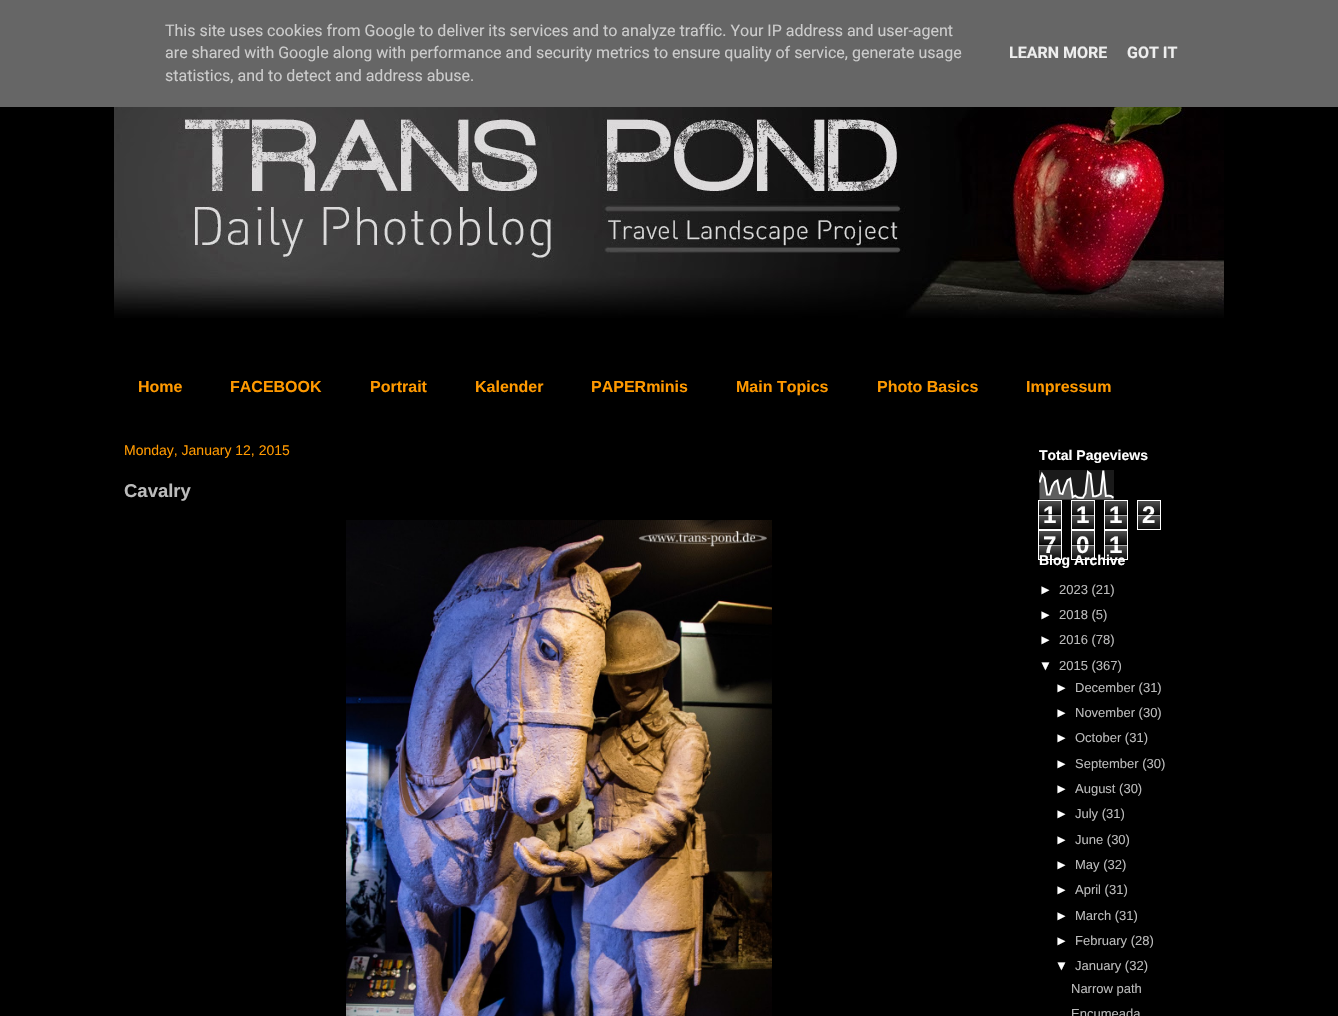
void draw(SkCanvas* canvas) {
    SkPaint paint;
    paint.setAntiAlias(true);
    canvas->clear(0xFF000000);
    paint.setColor(0xFF666666);
    canvas->drawRect(SkRect::MakeXYWH(0, 0, 1338, 107), paint);
    SkFont font1(fontMgr->matchFamilyStyle("Roboto", SkFontStyle::Normal()), 16);
    font1.setSubpixel(true);
    paint.setColor(0xFFCCCCCC);
    canvas->drawString("This site uses cookies from Google to deliver its services and to analyze traffic. Your IP address and user-agent", 165, 36, font1, paint);
    canvas->drawString("are shared with Google along with performance and security metrics to ensure quality of service, generate usage", 165, 58, font1, paint);
    canvas->drawString("statistics, and to detect and address abuse.", 165, 81, font1, paint);
    SkFont font2(fontMgr->matchFamilyStyle("Roboto", SkFontStyle::Bold()), 16);
    font2.setSubpixel(true);
    paint.setColor(0xFFEEEEEE);
    canvas->drawString("LEARN MORE", 1009, 58, font2, paint);
    canvas->drawString("GOT IT", 1127, 58, font2, paint);
    canvas->drawImageRect(SkImages::DeferredFromEncodedData(SkData::MakeFromFileName("img1.png")), SkRect::MakeXYWH(114, 107, 1110, 211), SkSamplingOptions());
    SkFont font3(fontMgr->matchFamilyStyle("Liberation Sans", SkFontStyle::Bold()), 16);
    font3.setSubpixel(true);
    paint.setColor(0xFFFF9900);
    canvas->drawString("Home", 138, 392, font3, paint);
    canvas->drawString("FACEBOOK", 230, 392, font3, paint);
    canvas->drawString("Portrait", 370, 392, font3, paint);
    canvas->drawString("Kalender", 475, 392, font3, paint);
    canvas->drawString("PAPERminis", 591, 392, font3, paint);
    canvas->drawString("Main Topics", 736, 392, font3, paint);
    canvas->drawString("Photo Basics", 877, 392, font3, paint);
    canvas->drawString("Impressum", 1026, 392, font3, paint);
    SkFont font4(fontMgr->matchFamilyStyle("Liberation Sans", SkFontStyle::Normal()), 14);
    font4.setSubpixel(true);
    canvas->drawString("Monday, January 12, 2015", 124, 455, font4, paint);
    SkFont font5(fontMgr->matchFamilyStyle("Liberation Sans", SkFontStyle::Bold()), 18.5f);
    font5.setSubpixel(true);
    paint.setColor(0xFFBBBBBB);
    canvas->drawString("Cavalry", 124, 497, font5, paint);
    canvas->drawImageRect(SkImages::DeferredFromEncodedData(SkData::MakeFromFileName("img2.png")), SkRect::MakeXYWH(346, 520, 426, 496), SkSamplingOptions());
    SkFont font6(fontMgr->matchFamilyStyle("Liberation Sans", SkFontStyle::Bold()), 14);
    font6.setSubpixel(true);
    paint.setColor(0xFFFFFFFF);
    canvas->drawString("Total Pageviews", 1039, 460, font6, paint);
    canvas->drawImageRect(SkImages::DeferredFromEncodedData(SkData::MakeFromFileName("img3.png")), SkRect::MakeXYWH(1039, 470, 75, 30), SkSamplingOptions());
    canvas->drawImageRect(SkImages::DeferredFromEncodedData(SkData::MakeFromFileName("img4.png")), SkRect::MakeXYWH(1039, 501, 22, 28), SkSamplingOptions());
    paint.setStyle(SkPaint::kStroke_Style);
    paint.setStrokeWidth(1);
    canvas->drawRect(SkRect::MakeXYWH(1038.5f, 500.5f, 23, 29), paint);
    SkFont font7(fontMgr->matchFamilyStyle("Liberation Sans", SkFontStyle::Bold()), 24);
    font7.setSubpixel(true);
    paint.setStyle(SkPaint::kFill_Style);
    canvas->drawString("1", 1043, 523, font7, paint);
    paint.setColor(0xA6000000);
    canvas->drawRect(SkRect::MakeXYWH(1039, 514, 22, 1), paint);
    paint.setColor(0xA6FFFFFF);
    canvas->drawRect(SkRect::MakeXYWH(1039, 515, 22, 1), paint);
    canvas->drawImageRect(SkImages::DeferredFromEncodedData(SkData::MakeFromFileName("img4.png")), SkRect::MakeXYWH(1072, 501, 22, 28), SkSamplingOptions());
    paint.setStyle(SkPaint::kStroke_Style);
    paint.setColor(0xFFFFFFFF);
    canvas->drawRect(SkRect::MakeXYWH(1071.5f, 500.5f, 23, 29), paint);
    paint.setStyle(SkPaint::kFill_Style);
    canvas->drawString("1", 1076, 523, font7, paint);
    paint.setColor(0xA6000000);
    canvas->drawRect(SkRect::MakeXYWH(1072, 514, 22, 1), paint);
    paint.setColor(0xA6FFFFFF);
    canvas->drawRect(SkRect::MakeXYWH(1072, 515, 22, 1), paint);
    canvas->drawImageRect(SkImages::DeferredFromEncodedData(SkData::MakeFromFileName("img4.png")), SkRect::MakeXYWH(1105, 501, 22, 28), SkSamplingOptions());
    paint.setStyle(SkPaint::kStroke_Style);
    paint.setColor(0xFFFFFFFF);
    canvas->drawRect(SkRect::MakeXYWH(1104.5f, 500.5f, 23, 29), paint);
    paint.setStyle(SkPaint::kFill_Style);
    canvas->drawString("1", 1109, 523, font7, paint);
    paint.setColor(0xA6000000);
    canvas->drawRect(SkRect::MakeXYWH(1105, 514, 22, 1), paint);
    paint.setColor(0xA6FFFFFF);
    canvas->drawRect(SkRect::MakeXYWH(1105, 515, 22, 1), paint);
    canvas->drawImageRect(SkImages::DeferredFromEncodedData(SkData::MakeFromFileName("img4.png")), SkRect::MakeXYWH(1138, 501, 22, 28), SkSamplingOptions());
    paint.setStyle(SkPaint::kStroke_Style);
    paint.setColor(0xFFFFFFFF);
    canvas->drawRect(SkRect::MakeXYWH(1137.5f, 500.5f, 23, 29), paint);
    paint.setStyle(SkPaint::kFill_Style);
    canvas->drawString("2", 1142, 523, font7, paint);
    paint.setColor(0xA6000000);
    canvas->drawRect(SkRect::MakeXYWH(1138, 514, 22, 1), paint);
    paint.setColor(0xA6FFFFFF);
    canvas->drawRect(SkRect::MakeXYWH(1138, 515, 22, 1), paint);
    canvas->drawImageRect(SkImages::DeferredFromEncodedData(SkData::MakeFromFileName("img4.png")), SkRect::MakeXYWH(1039, 531, 22, 28), SkSamplingOptions());
    paint.setStyle(SkPaint::kStroke_Style);
    paint.setColor(0xFFFFFFFF);
    canvas->drawRect(SkRect::MakeXYWH(1038.5f, 530.5f, 23, 29), paint);
    paint.setStyle(SkPaint::kFill_Style);
    canvas->drawString("7", 1043, 553, font7, paint);
    paint.setColor(0xA6000000);
    canvas->drawRect(SkRect::MakeXYWH(1039, 544, 22, 1), paint);
    paint.setColor(0xA6FFFFFF);
    canvas->drawRect(SkRect::MakeXYWH(1039, 545, 22, 1), paint);
    canvas->drawImageRect(SkImages::DeferredFromEncodedData(SkData::MakeFromFileName("img4.png")), SkRect::MakeXYWH(1072, 531, 22, 28), SkSamplingOptions());
    paint.setStyle(SkPaint::kStroke_Style);
    paint.setColor(0xFFFFFFFF);
    canvas->drawRect(SkRect::MakeXYWH(1071.5f, 530.5f, 23, 29), paint);
    paint.setStyle(SkPaint::kFill_Style);
    canvas->drawString("0", 1076, 553, font7, paint);
    paint.setColor(0xA6000000);
    canvas->drawRect(SkRect::MakeXYWH(1072, 544, 22, 1), paint);
    paint.setColor(0xA6FFFFFF);
    canvas->drawRect(SkRect::MakeXYWH(1072, 545, 22, 1), paint);
    canvas->drawImageRect(SkImages::DeferredFromEncodedData(SkData::MakeFromFileName("img4.png")), SkRect::MakeXYWH(1105, 531, 22, 28), SkSamplingOptions());
    paint.setStyle(SkPaint::kStroke_Style);
    paint.setColor(0xFFFFFFFF);
    canvas->drawRect(SkRect::MakeXYWH(1104.5f, 530.5f, 23, 29), paint);
    paint.setStyle(SkPaint::kFill_Style);
    canvas->drawString("1", 1109, 553, font7, paint);
    paint.setColor(0xA6000000);
    canvas->drawRect(SkRect::MakeXYWH(1105, 544, 22, 1), paint);
    paint.setColor(0xA6FFFFFF);
    canvas->drawRect(SkRect::MakeXYWH(1105, 545, 22, 1), paint);
    paint.setColor(0xFFFFFFFF);
    canvas->drawString("Blog Archive", 1039, 565, font6, paint);
    SkFont font8(fontMgr->matchFamilyStyle("Liberation Sans", SkFontStyle::Normal()), 13);
    font8.setSubpixel(true);
    canvas->drawString("►", 1039, 594, font8, paint);
    paint.setColor(0xFFBBBBBB);
    canvas->drawString("2023 (21)", 1059, 594, font8, paint);
    paint.setColor(0xFFFFFFFF);
    canvas->drawString("►", 1039, 619, font8, paint);
    paint.setColor(0xFFBBBBBB);
    canvas->drawString("2018 (5)", 1059, 619, font8, paint);
    paint.setColor(0xFFFFFFFF);
    canvas->drawString("►", 1039, 644, font8, paint);
    paint.setColor(0xFFBBBBBB);
    canvas->drawString("2016 (78)", 1059, 644, font8, paint);
    paint.setColor(0xFFFFFFFF);
    canvas->drawString("▼", 1039, 670, font8, paint);
    paint.setColor(0xFFBBBBBB);
    canvas->drawString("2015 (367)", 1059, 670, font8, paint);
    paint.setColor(0xFFFFFFFF);
    canvas->drawString("►", 1055, 692, font8, paint);
    paint.setColor(0xFFBBBBBB);
    canvas->drawString("December (31)", 1075, 692, font8, paint);
    paint.setColor(0xFFFFFFFF);
    canvas->drawString("►", 1055, 717, font8, paint);
    paint.setColor(0xFFBBBBBB);
    canvas->drawString("November (30)", 1075, 717, font8, paint);
    paint.setColor(0xFFFFFFFF);
    canvas->drawString("►", 1055, 742, font8, paint);
    paint.setColor(0xFFBBBBBB);
    canvas->drawString("October (31)", 1075, 742, font8, paint);
    paint.setColor(0xFFFFFFFF);
    canvas->drawString("►", 1055, 768, font8, paint);
    paint.setColor(0xFFBBBBBB);
    canvas->drawString("September (30)", 1075, 768, font8, paint);
    paint.setColor(0xFFFFFFFF);
    canvas->drawString("►", 1055, 793, font8, paint);
    paint.setColor(0xFFBBBBBB);
    canvas->drawString("August (30)", 1075, 793, font8, paint);
    paint.setColor(0xFFFFFFFF);
    canvas->drawString("►", 1055, 818, font8, paint);
    paint.setColor(0xFFBBBBBB);
    canvas->drawString("July (31)", 1075, 818, font8, paint);
    paint.setColor(0xFFFFFFFF);
    canvas->drawString("►", 1055, 844, font8, paint);
    paint.setColor(0xFFBBBBBB);
    canvas->drawString("June (30)", 1075, 844, font8, paint);
    paint.setColor(0xFFFFFFFF);
    canvas->drawString("►", 1055, 869, font8, paint);
    paint.setColor(0xFFBBBBBB);
    canvas->drawString("May (32)", 1075, 869, font8, paint);
    paint.setColor(0xFFFFFFFF);
    canvas->drawString("►", 1055, 894, font8, paint);
    paint.setColor(0xFFBBBBBB);
    canvas->drawString("April (31)", 1075, 894, font8, paint);
    paint.setColor(0xFFFFFFFF);
    canvas->drawString("►", 1055, 920, font8, paint);
    paint.setColor(0xFFBBBBBB);
    canvas->drawString("March (31)", 1075, 920, font8, paint);
    paint.setColor(0xFFFFFFFF);
    canvas->drawString("►", 1055, 945, font8, paint);
    paint.setColor(0xFFBBBBBB);
    canvas->drawString("February (28)", 1075, 945, font8, paint);
    paint.setColor(0xFFFFFFFF);
    canvas->drawString("▼", 1055, 970, font8, paint);
    paint.setColor(0xFFBBBBBB);
    canvas->drawString("January (32)", 1075, 970, font8, paint);
    canvas->drawString("Narrow path", 1071, 993, font8, paint);
    canvas->drawString("Encumeada", 1071, 1018, font8, paint);
}
